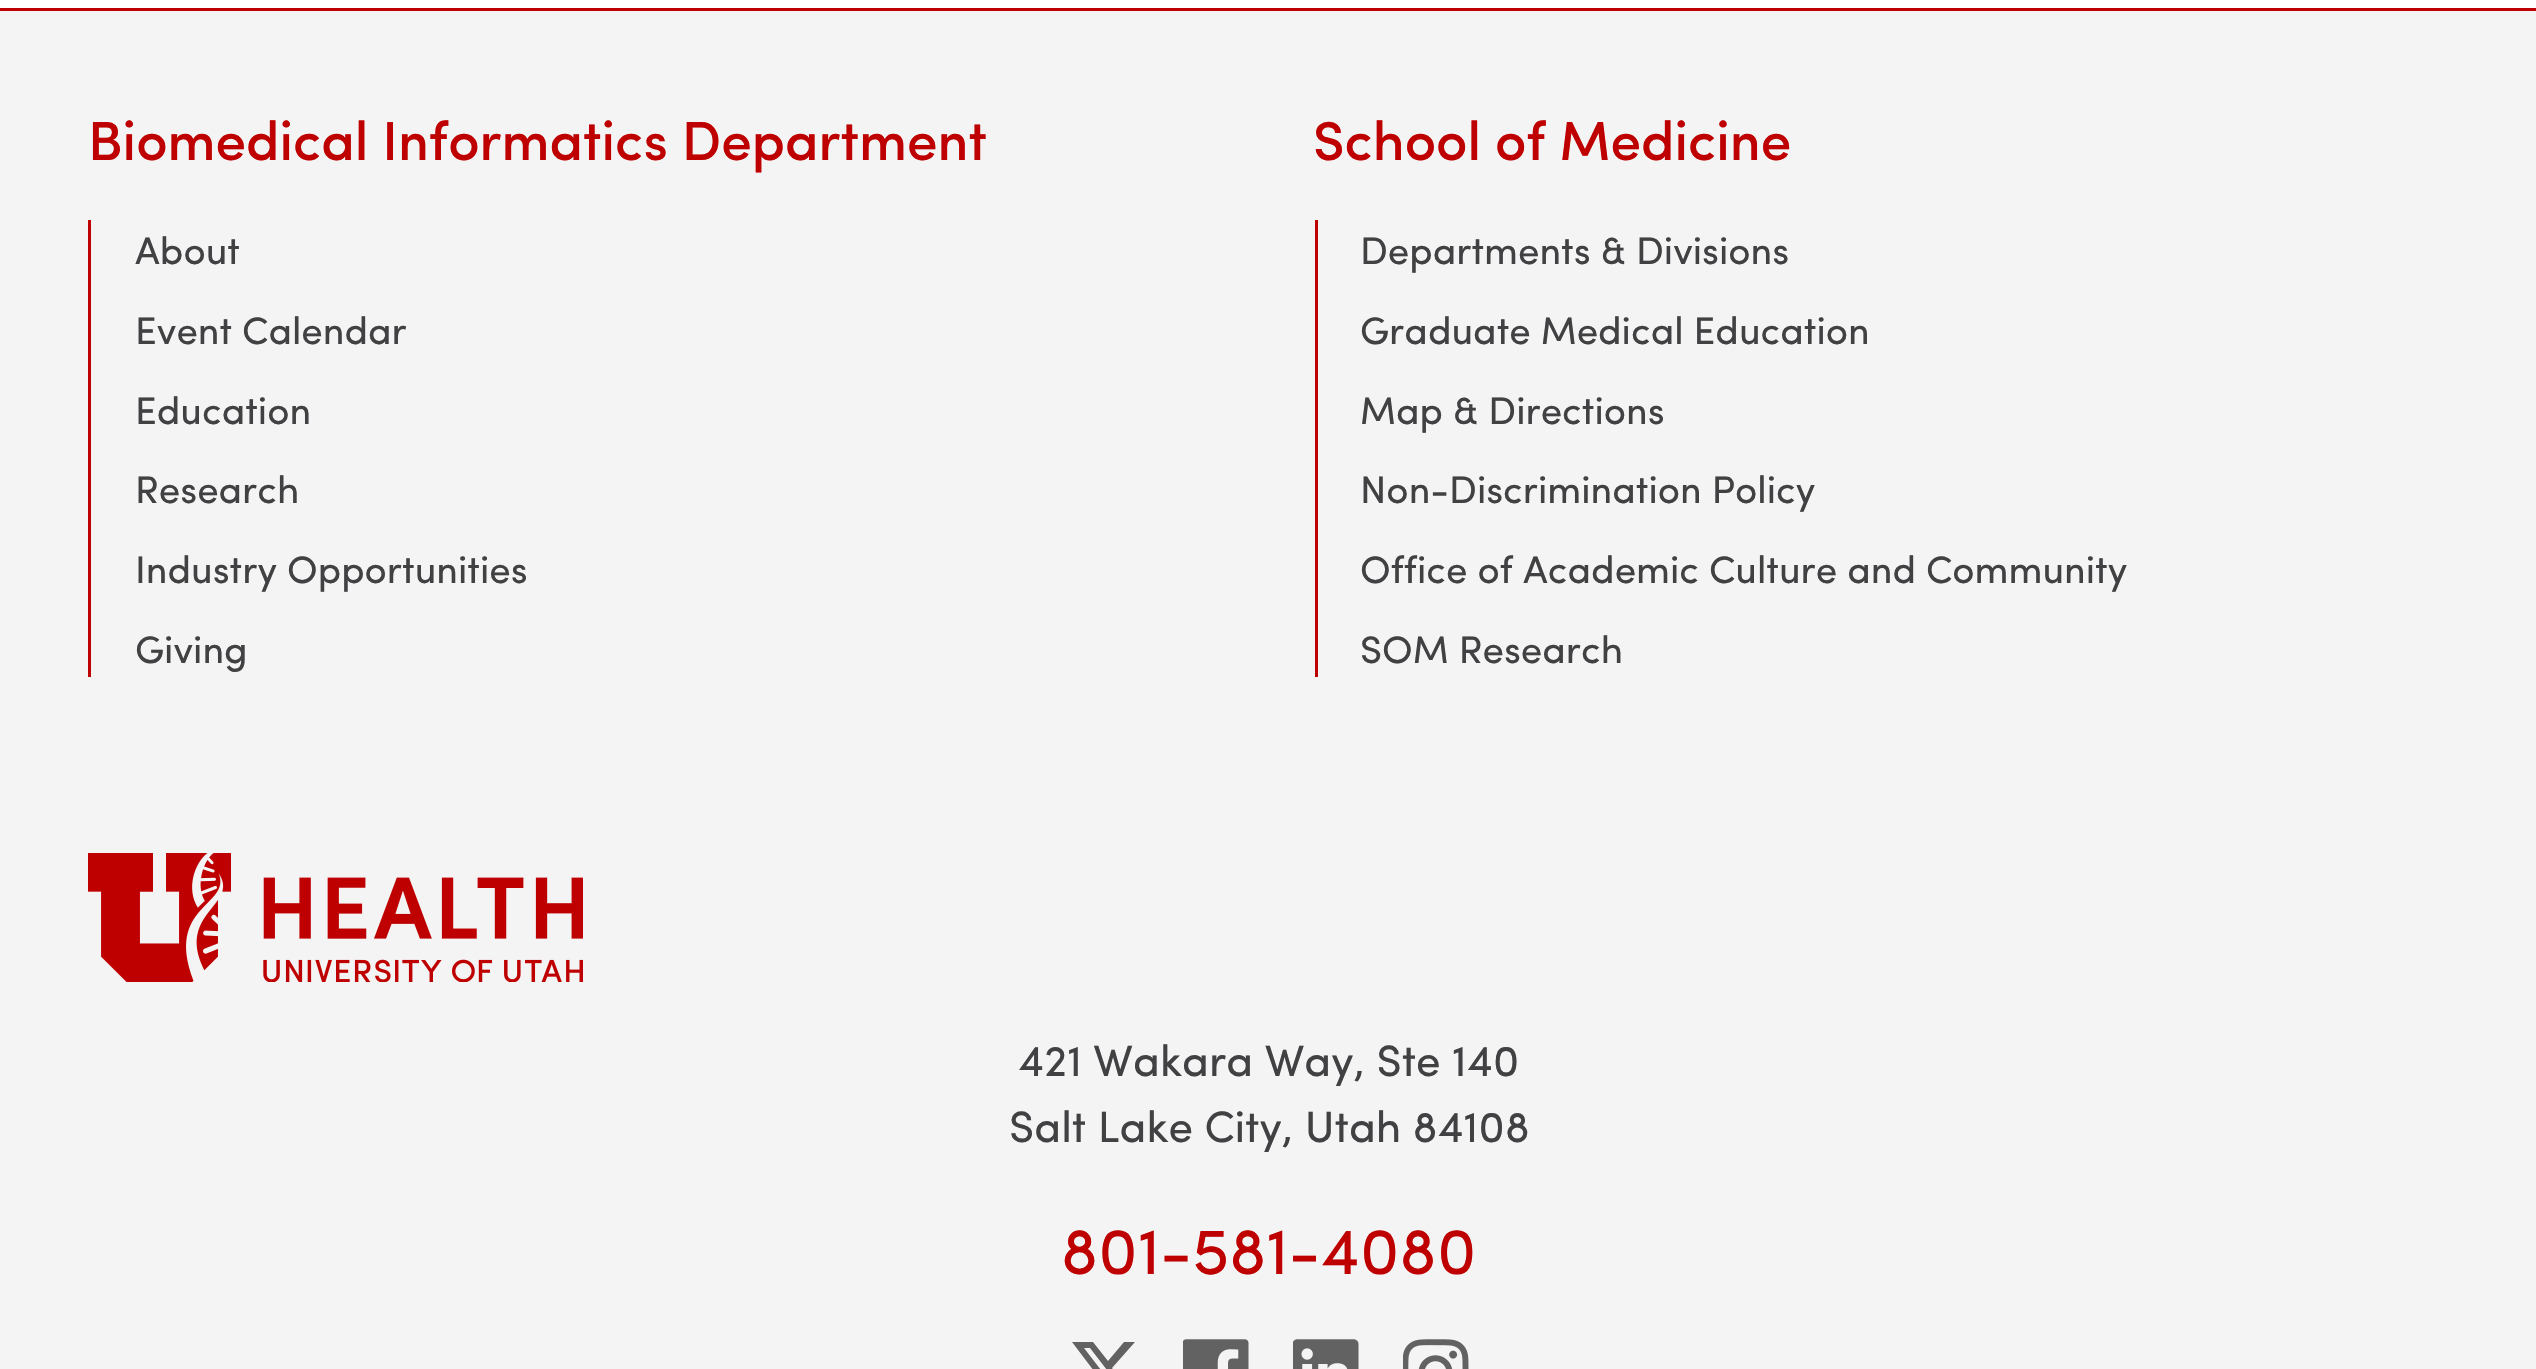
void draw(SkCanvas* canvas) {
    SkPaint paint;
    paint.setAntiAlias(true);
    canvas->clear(0xFFFFFFFF);
    paint.setColor(0xFFF4F4F5);
    canvas->drawRect(SkRect::MakeXYWH(0, 11, 2536, 1358), paint);
    paint.setColor(0xFFBE0000);
    canvas->drawRect(SkRect::MakeXYWH(0, 8, 2536, 3), paint);
    SkFont font1(fontMgr->matchFamilyStyle("Sofia", SkFontStyle(500, SkFontStyle::kNormal_Width, SkFontStyle::kUpright_Slant)), 55);
    font1.setSubpixel(true);
    canvas->drawString("Biomedical Informatics Department", 88, 160, font1, paint);
    canvas->drawRect(SkRect::MakeXYWH(88, 220, 3, 457), paint);
    SkFont font2(fontMgr->matchFamilyStyle("Sofia", SkFontStyle::Normal()), 38.5f);
    font2.setSubpixel(true);
    paint.setColor(0xFF414042);
    canvas->drawString("About", 135, 264, font2, paint);
    canvas->drawString("Event Calendar", 135, 344, font2, paint);
    canvas->drawString("Education", 135, 424, font2, paint);
    canvas->drawString("Research", 135, 503, font2, paint);
    canvas->drawString("Industry Opportunities", 135, 583, font2, paint);
    canvas->drawString("Giving", 135, 663, font2, paint);
    paint.setColor(0xFFBE0000);
    canvas->drawString("School of Medicine", 1313, 160, font1, paint);
    canvas->drawRect(SkRect::MakeXYWH(1315, 220, 3, 457), paint);
    paint.setColor(0xFF414042);
    canvas->drawString("Departments & Divisions", 1360, 264, font2, paint);
    canvas->drawString("Graduate Medical Education", 1360, 344, font2, paint);
    canvas->drawString("Map & Directions", 1360, 424, font2, paint);
    canvas->drawString("Non-Discrimination Policy", 1360, 503, font2, paint);
    canvas->drawString("Office of Academic Culture and Community", 1360, 583, font2, paint);
    canvas->drawString("SOM Research", 1360, 663, font2, paint);
    canvas->drawImageRect(SkImages::DeferredFromEncodedData(SkData::MakeFromFileName("img1.png")), SkRect::MakeXYWH(88, 853, 495, 129), SkSamplingOptions());
    SkFont font3(fontMgr->matchFamilyStyle("Sofia", SkFontStyle::Normal()), 44);
    font3.setSubpixel(true);
    canvas->drawString("421 Wakara Way, Ste 140", 1018, 1076, font3, paint);
    canvas->drawString("Salt Lake City, Utah 84108", 1009, 1142, font3, paint);
    SkFont font4(fontMgr->matchFamilyStyle("Sofia", SkFontStyle::Normal()), 66);
    font4.setSubpixel(true);
    paint.setColor(0xFFBE0000);
    canvas->drawString("801-581-4080", 1061, 1274, font4, paint);
    paint.setColor(0xFF626262);
    canvas->drawPath(SkPathBuilder().moveTo(1124, 1342).lineTo(1135, 1342).lineTo(1112, 1368).lineTo(1138, 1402).lineTo(1118, 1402).lineTo(1102, 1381).lineTo(1084, 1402).lineTo(1074, 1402).lineTo(1097, 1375).lineTo(1072, 1342).lineTo(1093, 1342).lineTo(1108, 1361).close().moveTo(1121, 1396).lineTo(1127, 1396).lineTo(1090, 1348).lineTo(1084, 1348).close().detach(), paint);
    canvas->drawImageRect(SkImages::DeferredFromEncodedData(SkData::MakeFromFileName("img2.png")), SkRect::MakeXYWH(1183, 1339, 66, 30), SkSamplingOptions());
    canvas->drawImageRect(SkImages::DeferredFromEncodedData(SkData::MakeFromFileName("img3.png")), SkRect::MakeXYWH(1293, 1339, 66, 30), SkSamplingOptions());
    canvas->drawImageRect(SkImages::DeferredFromEncodedData(SkData::MakeFromFileName("img4.png")), SkRect::MakeXYWH(1403, 1339, 66, 30), SkSamplingOptions());
}
